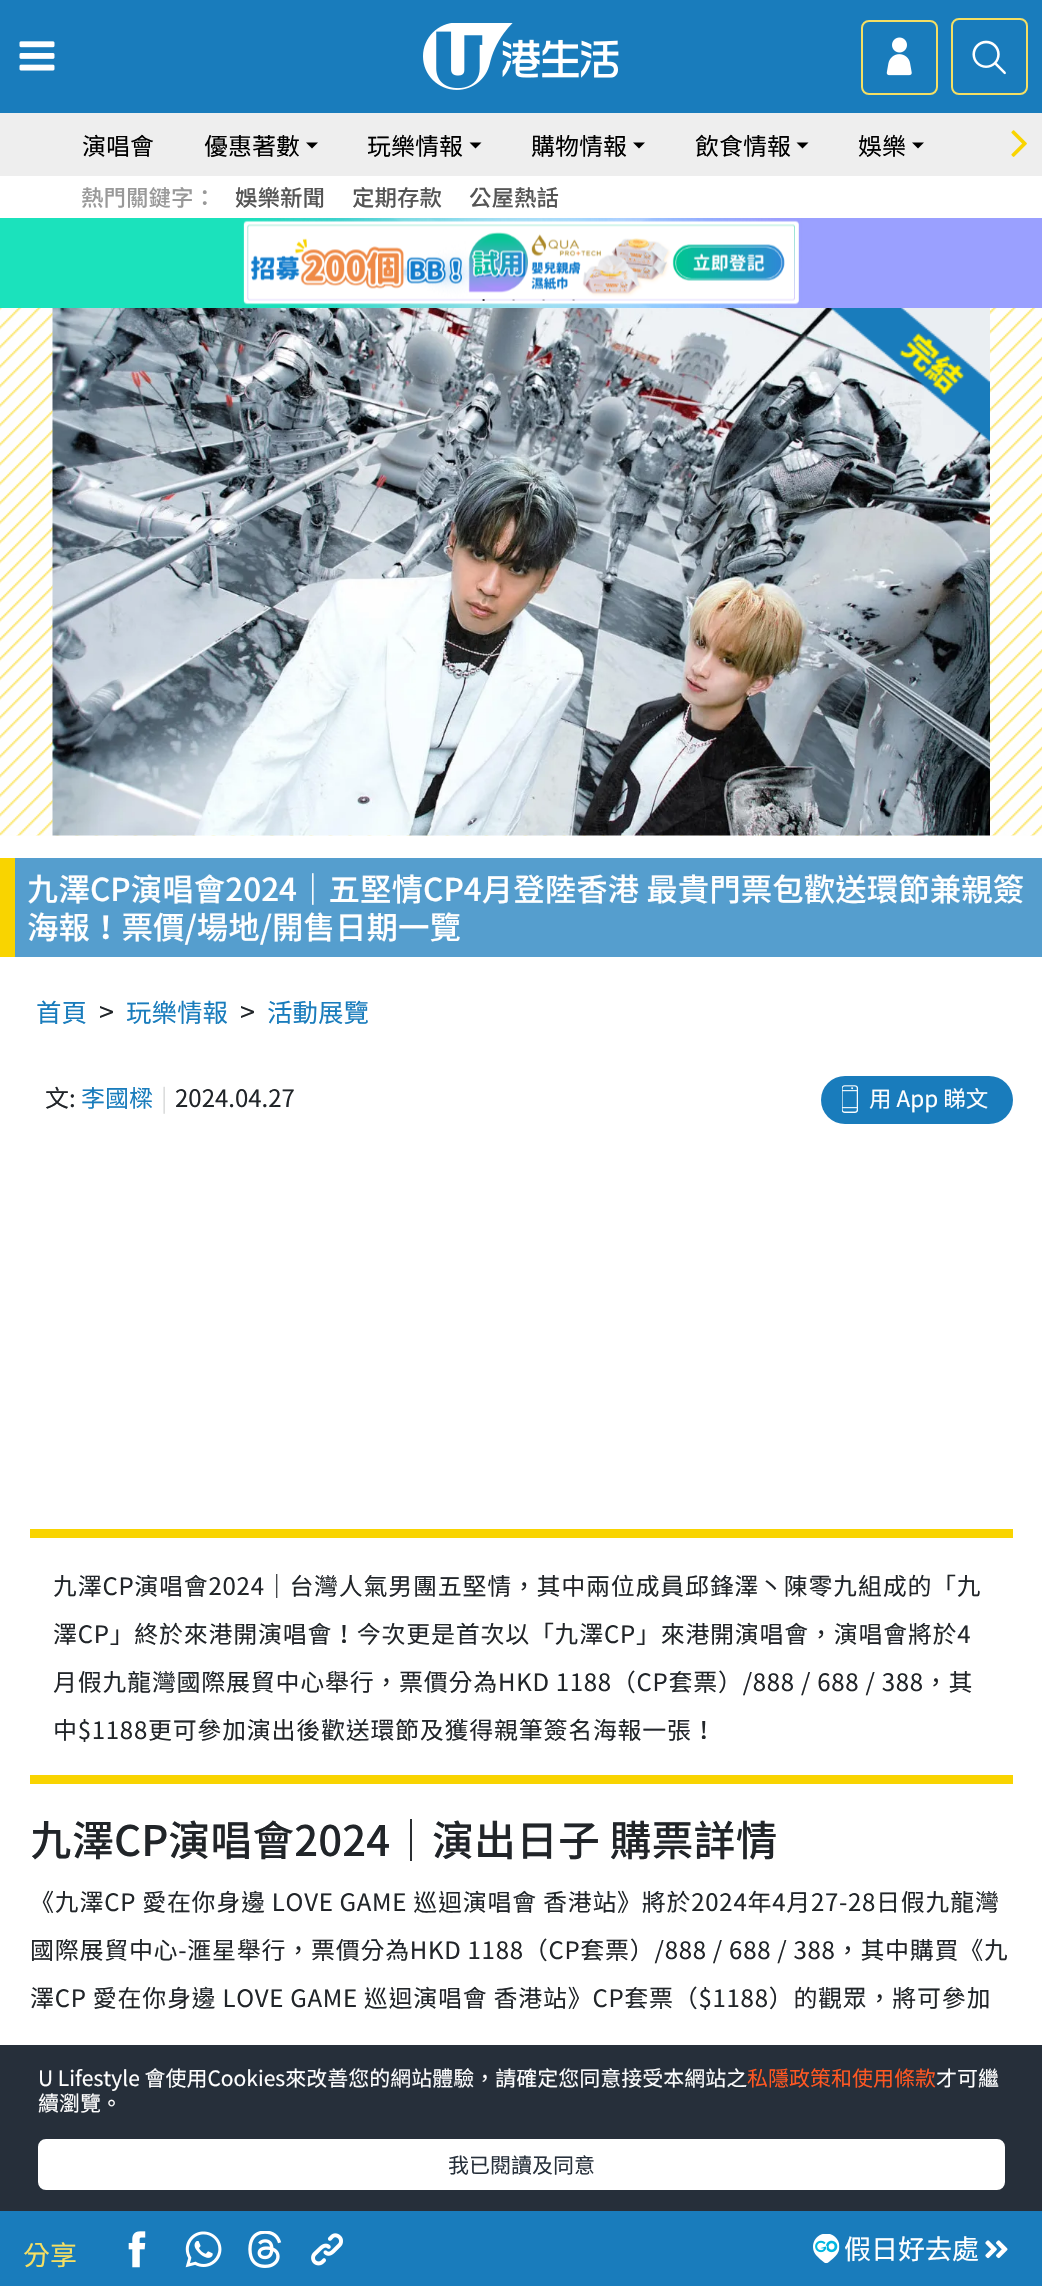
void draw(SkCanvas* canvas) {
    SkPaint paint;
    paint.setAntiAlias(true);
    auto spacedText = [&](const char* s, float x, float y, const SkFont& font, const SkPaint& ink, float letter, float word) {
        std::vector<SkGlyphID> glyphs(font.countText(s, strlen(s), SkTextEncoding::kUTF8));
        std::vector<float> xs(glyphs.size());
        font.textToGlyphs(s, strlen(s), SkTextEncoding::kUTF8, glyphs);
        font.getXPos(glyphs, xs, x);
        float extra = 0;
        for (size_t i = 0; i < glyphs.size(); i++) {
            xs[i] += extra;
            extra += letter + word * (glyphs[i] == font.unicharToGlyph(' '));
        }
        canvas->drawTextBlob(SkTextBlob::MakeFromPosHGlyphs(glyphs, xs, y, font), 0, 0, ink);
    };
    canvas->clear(0xFFFFFFFF);
    paint.setColor(0xFF197CBC);
    canvas->drawRect(SkRect::MakeXYWH(0, 0, 1042, 113), paint);
    canvas->drawImageRect(SkImages::DeferredFromEncodedData(SkData::MakeFromFileName("img1.png")), SkRect::MakeXYWH(19, 41, 36, 30), SkSamplingOptions());
    canvas->drawImageRect(SkImages::DeferredFromEncodedData(SkData::MakeFromFileName("img2.png")), SkRect::MakeXYWH(423, 23, 196, 67), SkSamplingOptions());
    paint.setStyle(SkPaint::kStroke_Style);
    paint.setStrokeWidth(2);
    paint.setColor(0xFFF5DF63);
    canvas->drawRoundRect(SkRect::MakeXYWH(862, 21, 75, 73), 7, 7, paint);
    canvas->drawImageRect(SkImages::DeferredFromEncodedData(SkData::MakeFromFileName("img3.png")), SkRect::MakeXYWH(886, 37, 26, 39), SkSamplingOptions());
    canvas->drawRoundRect(SkRect::MakeXYWH(952, 19, 75, 75), 7, 7, paint);
    canvas->drawImageRect(SkImages::DeferredFromEncodedData(SkData::MakeFromFileName("img4.png")), SkRect::MakeXYWH(972, 40, 34, 35), SkSamplingOptions());
    paint.setStyle(SkPaint::kFill_Style);
    paint.setColor(0xFFEEEEEE);
    canvas->drawRect(SkRect::MakeXYWH(0, 113, 1042, 63), paint);
    SkFont font1(fontMgr->matchFamilyStyle("Noto Sans TC", SkFontStyle::Normal()), 24);
    font1.setSubpixel(true);
    paint.setColor(0xFF000000);
    canvas->drawString("演唱會", 82, 155, font1, paint);
    canvas->drawString("優惠著數", 204, 155, font1, paint);
    canvas->drawPath(SkPathBuilder().moveTo(306, 142.5f).lineTo(318, 142.5f).lineTo(312, 148.5f).close().detach(), paint);
    canvas->drawString("玩樂情報", 367, 155, font1, paint);
    canvas->drawPath(SkPathBuilder().moveTo(469.5f, 142.5f).lineTo(481.5f, 142.5f).lineTo(475.5f, 148.5f).close().detach(), paint);
    canvas->drawString("購物情報", 531, 155, font1, paint);
    canvas->drawPath(SkPathBuilder().moveTo(633, 142.5f).lineTo(645, 142.5f).lineTo(639, 148.5f).close().detach(), paint);
    canvas->drawString("飲食情報", 695, 155, font1, paint);
    canvas->drawPath(SkPathBuilder().moveTo(796.5f, 142.5f).lineTo(808.5f, 142.5f).lineTo(802.5f, 148.5f).close().detach(), paint);
    canvas->drawString("娛樂", 858, 155, font1, paint);
    canvas->drawPath(SkPathBuilder().moveTo(912, 142.5f).lineTo(924, 142.5f).lineTo(918, 148.5f).close().detach(), paint);
    canvas->drawImageRect(SkImages::DeferredFromEncodedData(SkData::MakeFromFileName("img5.png")), SkRect::MakeXYWH(1011, 130, 16, 27), SkSamplingOptions());
    SkFont font2(fontMgr->matchFamilyStyle("Noto Sans TC", SkFontStyle(500, SkFontStyle::kNormal_Width, SkFontStyle::kUpright_Slant)), 22.5f);
    font2.setSubpixel(true);
    paint.setColor(0xFF999999);
    canvas->drawString("熱門關鍵字：", 81, 206, font2, paint);
    paint.setColor(0xFF555555);
    canvas->drawString("娛樂新聞", 235, 206, font2, paint);
    canvas->drawString("定期存款", 352, 206, font2, paint);
    canvas->drawString("公屋熱話", 469, 206, font2, paint);
    canvas->drawImageRect(SkImages::DeferredFromEncodedData(SkData::MakeFromFileName("img6.png")), SkRect::MakeXYWH(0, 218, 1042, 90), SkSamplingOptions());
    SkFont font3(fontMgr->matchFamilyStyle("Liberation Serif", SkFontStyle::Normal()), 9);
    font3.setSubpixel(true);
    paint.setColor(0xFF3D3C40);
    canvas->drawString("•", 482, 303, font3, paint);
    paint.setColor(0xFFB7B5BF);
    canvas->drawString("•", 512, 303, font3, paint);
    canvas->drawString("•", 542, 303, font3, paint);
    canvas->drawString("•", 572, 303, font3, paint);
    canvas->drawImageRect(SkImages::DeferredFromEncodedData(SkData::MakeFromFileName("img7.png")), SkRect::MakeXYWH(0, 308, 1042, 528), SkSamplingOptions());
    canvas->drawImageRect(SkImages::DeferredFromEncodedData(SkData::MakeFromFileName("img8.png")), SkRect::MakeXYWH(52, 308, 938, 528), SkSamplingOptions());
    canvas->drawImageRect(SkImages::DeferredFromEncodedData(SkData::MakeFromFileName("img9.png")), SkRect::MakeXYWH(829, 308, 161, 134), SkSamplingOptions());
    paint.setColor(0xFF559ECE);
    canvas->drawRect(SkRect::MakeXYWH(15, 858, 1027, 99), paint);
    paint.setColor(0xFFF9D400);
    canvas->drawRect(SkRect::MakeXYWH(0, 858, 15, 99), paint);
    SkFont font4(fontMgr->matchFamilyStyle("Noto Sans TC", SkFontStyle(500, SkFontStyle::kNormal_Width, SkFontStyle::kUpright_Slant)), 31.5f);
    font4.setSubpixel(true);
    paint.setColor(0xFFFFFFFF);
    canvas->drawString("九澤CP演唱會2024｜五堅情CP4月登陸香港 最貴門票包歡送環節兼親簽", 27, 901, font4, paint);
    canvas->drawString("海報！票價/場地/開售日期一覽", 27, 939, font4, paint);
    SkFont font5(fontMgr->matchFamilyStyle("Noto Sans TC", SkFontStyle::Normal()), 25.5f);
    font5.setSubpixel(true);
    paint.setColor(0xFF197CBC);
    canvas->drawString("首頁", 36, 1022, font5, paint);
    SkFont font6(fontMgr->matchFamilyStyle("Noto Sans TC", SkFontStyle::Normal()), 27);
    font6.setSubpixel(true);
    paint.setColor(0xFF212529);
    canvas->drawString(">", 99, 1022, font6, paint);
    paint.setColor(0xFF197CBC);
    canvas->drawString("玩樂情報", 126, 1022, font5, paint);
    paint.setColor(0xFF212529);
    canvas->drawString(">", 240, 1022, font6, paint);
    paint.setColor(0xFF197CBC);
    canvas->drawString("活動展覽", 267, 1022, font5, paint);
    paint.setColor(0xFF212529);
    canvas->drawString("文:", 45, 1107, font1, paint);
    paint.setColor(0xFF197CBC);
    canvas->drawString("李國樑", 81, 1107, font1, paint);
    paint.setColor(0xFFDCDDDD);
    canvas->drawString("|", 161, 1107, font1, paint);
    paint.setColor(0xFF212529);
    canvas->drawString("2024.04.27", 175, 1107, font1, paint);
    paint.setColor(0xFF197CBC);
    canvas->drawRoundRect(SkRect::MakeXYWH(821, 1076, 192, 48), 24, 24, paint);
    canvas->drawImageRect(SkImages::DeferredFromEncodedData(SkData::MakeFromFileName("img10.png")), SkRect::MakeXYWH(842, 1085, 16, 28), SkSamplingOptions());
    SkFont font7(fontMgr->matchFamilyStyle("Noto Sans TC", SkFontStyle::Normal()), 22.5f);
    font7.setSubpixel(true);
    paint.setColor(0xFFFFFFFF);
    canvas->drawString("用 App 睇文", 869, 1107, font7, paint);
    paint.setColor(0xFFF9D400);
    canvas->drawRect(SkRect::MakeXYWH(30, 1529, 983, 9), paint);
    canvas->drawRect(SkRect::MakeXYWH(30, 1775, 983, 9), paint);
    paint.setColor(0xFF212529);
    spacedText("九澤CP演唱會2024｜台灣人氣男團五堅情，其中兩位成員邱鋒澤丶陳零九組成的「九", 53, 1595, font1, paint, 0.72f, 0);
    spacedText("澤CP」終於來港開演唱會！今次更是首次以「九澤CP」來港開演唱會，演唱會將於4", 53, 1643, font1, paint, 0.72f, 0);
    spacedText("月假九龍灣國際展貿中心舉行，票價分為HKD 1188（CP套票）/888 / 688 / 388，其", 53, 1691, font1, paint, 0.72f, 0);
    spacedText("中$1188更可參加演出後歡送環節及獲得親筆簽名海報一張！", 53, 1739, font1, paint, 0.72f, 0);
    SkFont font8(fontMgr->matchFamilyStyle("Noto Sans TC", SkFontStyle(500, SkFontStyle::kNormal_Width, SkFontStyle::kUpright_Slant)), 42);
    font8.setSubpixel(true);
    canvas->drawString("九澤CP演唱會2024｜演出日子 購票詳情", 30, 1856, font8, paint);
    spacedText("《九澤CP 愛在你身邊 LOVE GAME 巡迴演唱會 香港站》將於2024年4月27-28日假九龍灣", 30, 1911, font1, paint, 0.72f, 0);
    spacedText("國際展貿中心-滙星舉行，票價分為HKD 1188（CP套票）/888 / 688 / 388，其中購買《九", 30, 1959, font1, paint, 0.72f, 0);
    spacedText("澤CP 愛在你身邊 LOVE GAME 巡迴演唱會 香港站》CP套票（$1188）的觀眾，將可參加", 30, 2007, font1, paint, 0.72f, 0);
    paint.setColor(0xFF197CBC);
    canvas->drawRect(SkRect::MakeXYWH(0, 2211, 1042, 75), paint);
    paint.setColor(0xFFF5DF63);
    canvas->drawString("分享", 23, 2265, font6, paint);
    canvas->drawImageRect(SkImages::DeferredFromEncodedData(SkData::MakeFromFileName("img11.png")), SkRect::MakeXYWH(128, 2231, 18, 37), SkSamplingOptions());
    canvas->drawImageRect(SkImages::DeferredFromEncodedData(SkData::MakeFromFileName("img12.png")), SkRect::MakeXYWH(185, 2231, 37, 37), SkSamplingOptions());
    canvas->drawImageRect(SkImages::DeferredFromEncodedData(SkData::MakeFromFileName("img13.png")), SkRect::MakeXYWH(248, 2231, 34, 37), SkSamplingOptions());
    canvas->drawImageRect(SkImages::DeferredFromEncodedData(SkData::MakeFromFileName("img14.png")), SkRect::MakeXYWH(311, 2233, 32, 33), SkSamplingOptions());
    canvas->drawImageRect(SkImages::DeferredFromEncodedData(SkData::MakeFromFileName("img15.png")), SkRect::MakeXYWH(813, 2234, 27, 30), SkSamplingOptions());
    SkFont font9(fontMgr->matchFamilyStyle("Noto Sans CJK HK", SkFontStyle::Normal()), 27);
    font9.setSubpixel(true);
    paint.setColor(0xFFFFFFFF);
    canvas->drawString("假日好去處", 844, 2259, font9, paint);
    canvas->drawImageRect(SkImages::DeferredFromEncodedData(SkData::MakeFromFileName("img16.png")), SkRect::MakeXYWH(985, 2240, 23, 19), SkSamplingOptions());
    paint.setColor(0xFF262F3A);
    canvas->drawRect(SkRect::MakeXYWH(0, 2045, 1042, 166), paint);
    SkFont font10(fontMgr->matchFamilyStyle("Noto Sans TC", SkFontStyle::Normal()), 21);
    font10.setSubpixel(true);
    paint.setColor(0xFFFFFFFF);
    canvas->drawString("U Lifestyle 會使用Cookies來改善您的網站體驗，請確定您同意接受本網站之", 38, 2086, font10, paint);
    paint.setColor(0xFFFF5722);
    canvas->drawString("私隱政策和使用條款", 747, 2086, font10, paint);
    paint.setColor(0xFFFFFFFF);
    canvas->drawString("才可繼", 936, 2086, font10, paint);
    canvas->drawString("續瀏覽。", 38, 2111, font10, paint);
    canvas->drawRoundRect(SkRect::MakeXYWH(39, 2140, 965, 49), 7, 7, paint);
    paint.setStyle(SkPaint::kStroke_Style);
    canvas->drawRoundRect(SkRect::MakeXYWH(39, 2140, 965, 49), 7, 7, paint);
    paint.setStyle(SkPaint::kFill_Style);
    paint.setColor(0xFF262F3A);
    canvas->drawString("我已閱讀及同意", 448, 2173, font10, paint);
}
